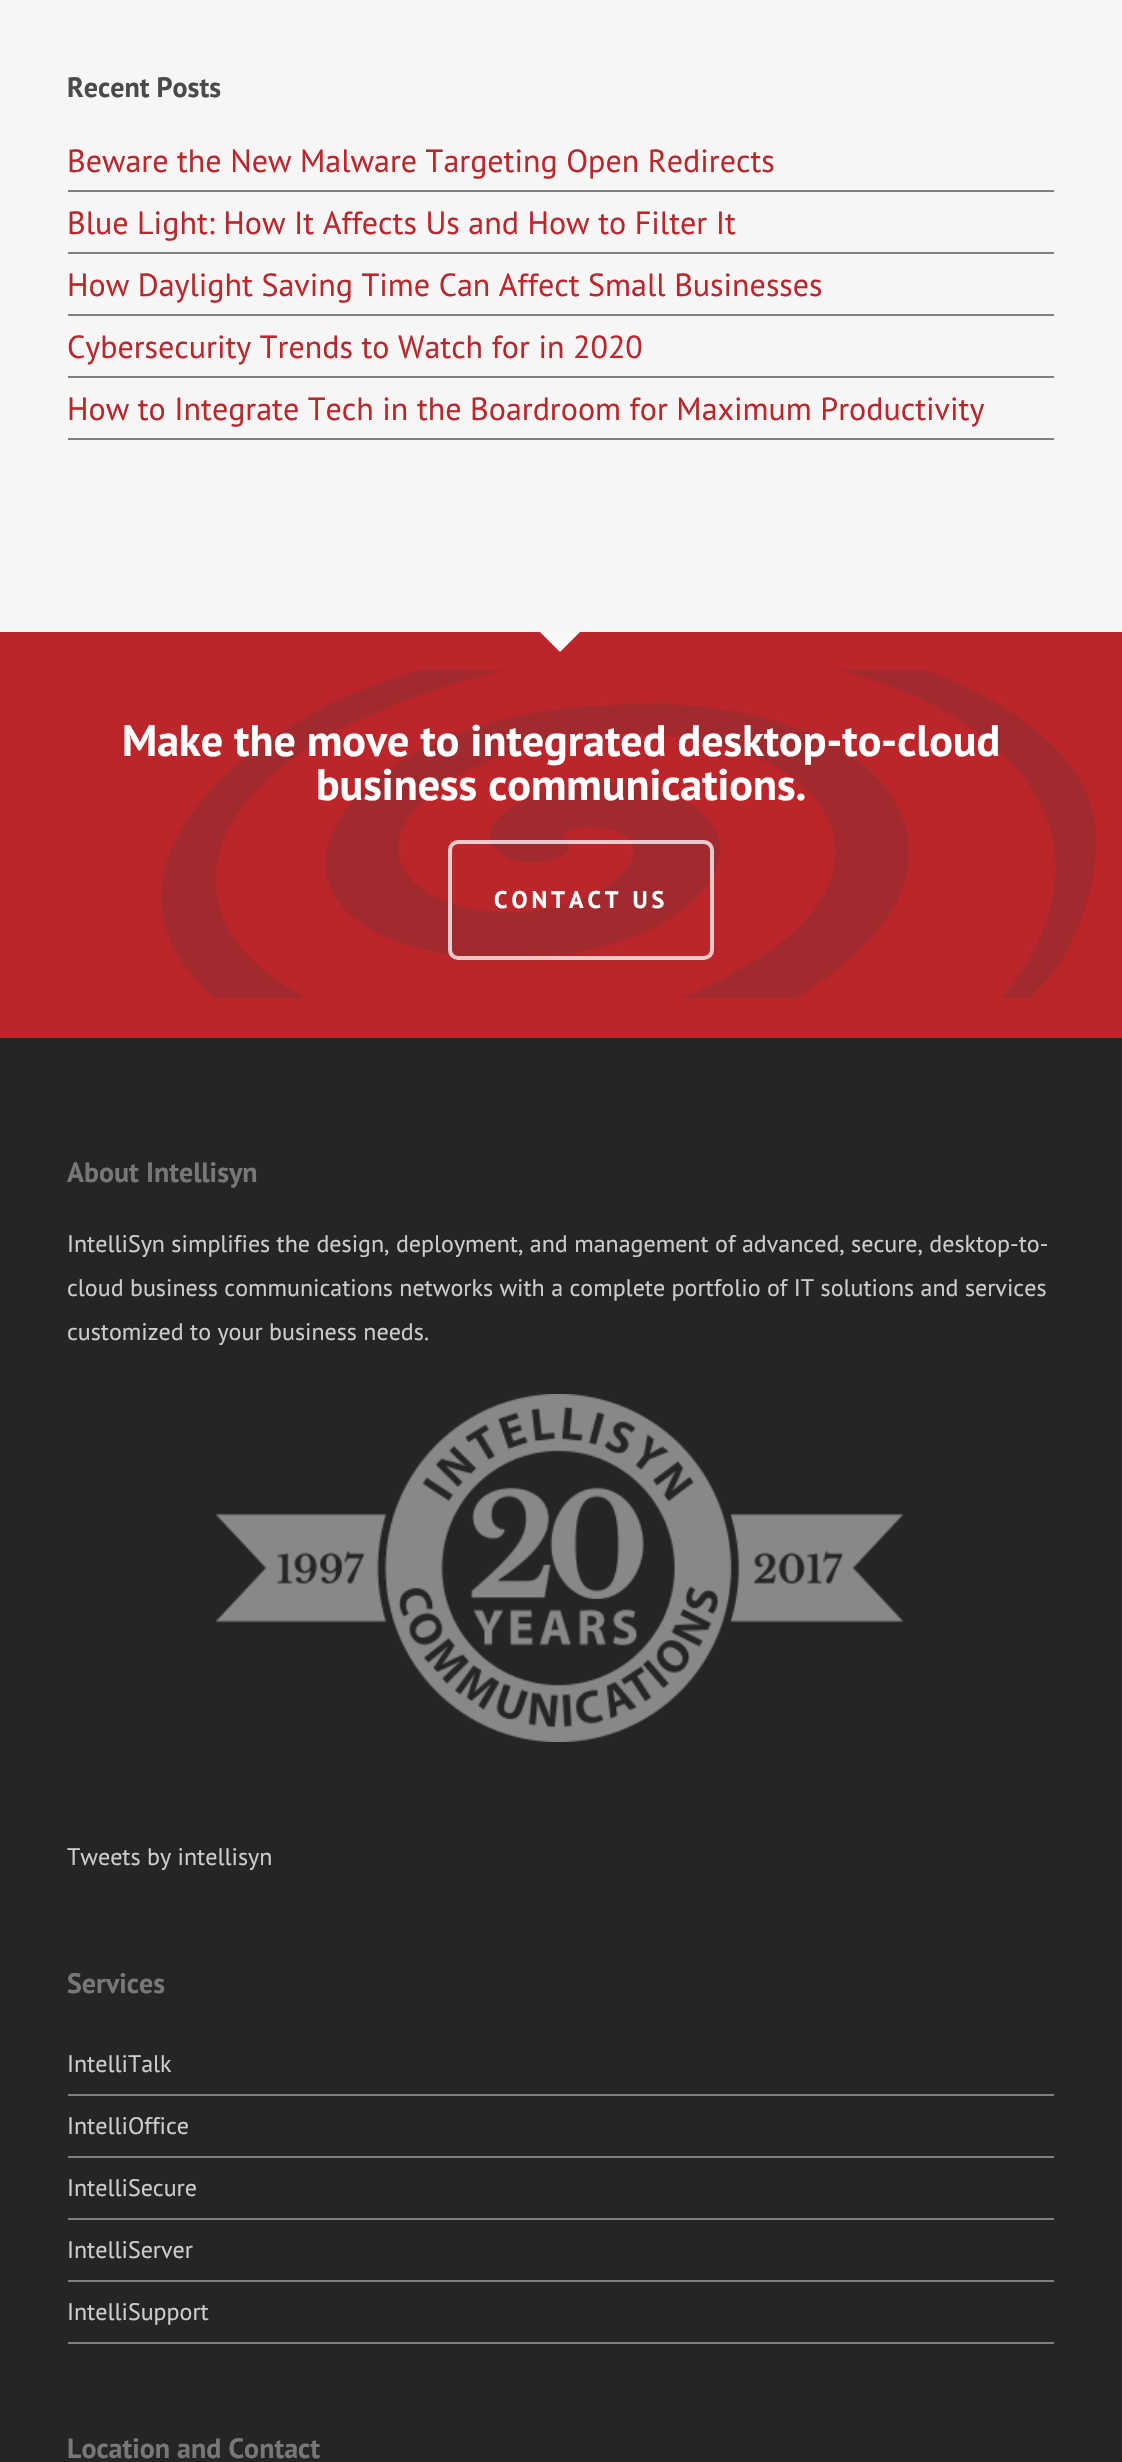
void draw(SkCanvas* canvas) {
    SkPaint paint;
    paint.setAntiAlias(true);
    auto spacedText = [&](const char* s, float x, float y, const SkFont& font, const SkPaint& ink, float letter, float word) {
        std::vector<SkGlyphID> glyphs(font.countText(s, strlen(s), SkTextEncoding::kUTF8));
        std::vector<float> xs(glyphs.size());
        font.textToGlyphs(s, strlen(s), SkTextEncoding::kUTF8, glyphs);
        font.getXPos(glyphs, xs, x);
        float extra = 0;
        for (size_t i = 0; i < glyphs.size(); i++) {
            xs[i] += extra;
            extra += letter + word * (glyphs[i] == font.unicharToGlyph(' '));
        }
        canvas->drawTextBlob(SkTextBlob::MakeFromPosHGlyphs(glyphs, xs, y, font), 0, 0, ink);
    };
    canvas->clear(0xFF252525);
    paint.setColor(0xFFF6F6F6);
    canvas->drawRect(SkRect::MakeXYWH(0, 0, 1122, 632), paint);
    SkFont font1(fontMgr->matchFamilyStyle("PT Sans", SkFontStyle::Bold()), 28);
    font1.setSubpixel(true);
    paint.setColor(0xFF4A4A4A);
    canvas->drawString("Recent Posts", 67, 97, font1, paint);
    paint.setColor(0xFF808080);
    canvas->drawRect(SkRect::MakeXYWH(68, 190, 986, 2), paint);
    SkFont font2(fontMgr->matchFamilyStyle("PT Sans", SkFontStyle::Normal()), 32);
    font2.setSubpixel(true);
    paint.setColor(0xFFBC262B);
    canvas->drawString("Beware the New Malware Targeting Open Redirects", 67, 172, font2, paint);
    paint.setColor(0xFF808080);
    canvas->drawRect(SkRect::MakeXYWH(68, 252, 986, 2), paint);
    paint.setColor(0xFFBC262B);
    canvas->drawString("Blue Light: How It Affects Us and How to Filter It", 67, 234, font2, paint);
    paint.setColor(0xFF808080);
    canvas->drawRect(SkRect::MakeXYWH(68, 314, 986, 2), paint);
    paint.setColor(0xFFBC262B);
    canvas->drawString("How Daylight Saving Time Can Affect Small Businesses", 67, 296, font2, paint);
    paint.setColor(0xFF808080);
    canvas->drawRect(SkRect::MakeXYWH(68, 376, 986, 2), paint);
    paint.setColor(0xFFBC262B);
    canvas->drawString("Cybersecurity Trends to Watch for in 2020", 67, 358, font2, paint);
    paint.setColor(0xFF808080);
    canvas->drawRect(SkRect::MakeXYWH(68, 438, 986, 2), paint);
    paint.setColor(0xFFBC262B);
    canvas->drawString("How to Integrate Tech in the Boardroom for Maximum Productivity", 67, 420, font2, paint);
    canvas->drawRect(SkRect::MakeXYWH(0, 632, 1122, 406), paint);
    canvas->drawImageRect(SkImages::DeferredFromEncodedData(SkData::MakeFromFileName("img1.png")), SkRect::MakeXYWH(160, 670, 937, 328), SkSamplingOptions());
    paint.setColor(0xFFF8F8F8);
    canvas->drawPath(SkPathBuilder().moveTo(540, 632).lineTo(580, 632).lineTo(560, 652).close().detach(), paint);
    SkFont font3(fontMgr->matchFamilyStyle("PT Sans", SkFontStyle::Bold()), 44);
    font3.setSubpixel(true);
    paint.setColor(0xFFFFFFFF);
    canvas->drawString("Make the move to integrated desktop-to-cloud", 122, 756, font3, paint);
    canvas->drawString("business communications.", 316, 800, font3, paint);
    paint.setStyle(SkPaint::kStroke_Style);
    paint.setStrokeWidth(4);
    paint.setColor(0xBFFFFFFF);
    canvas->drawRoundRect(SkRect::MakeXYWH(450, 842, 262, 116), 8, 8, paint);
    SkFont font4(fontMgr->matchFamilyStyle("PT Sans", SkFontStyle::Bold()), 24);
    font4.setSubpixel(true);
    paint.setStyle(SkPaint::kFill_Style);
    paint.setColor(0xFFFFFFFF);
    spacedText("CONTACT US", 494, 908, font4, paint, 4, 0);
    paint.setColor(0xFF777777);
    canvas->drawString("About Intellisyn", 67, 1182, font1, paint);
    SkFont font5(fontMgr->matchFamilyStyle("PT Sans", SkFontStyle::Normal()), 24);
    font5.setSubpixel(true);
    paint.setColor(0xFFCCCCCC);
    canvas->drawString("IntelliSyn simplifies the design, deployment, and management of advanced, secure, desktop-to-", 67, 1252, font5, paint);
    canvas->drawString("cloud business communications networks with a complete portfolio of IT solutions and services", 67, 1296, font5, paint);
    canvas->drawString("customized to your business needs.", 67, 1340, font5, paint);
    canvas->drawImageRect(SkImages::DeferredFromEncodedData(SkData::MakeFromFileName("img2.png")), SkRect::MakeXYWH(216, 1394, 688, 348), SkSamplingOptions());
    canvas->drawString("Tweets by intellisyn", 67, 1865, font5, paint);
    paint.setColor(0xFF777777);
    canvas->drawString("Services", 67, 1993, font1, paint);
    paint.setColor(0xFF808080);
    canvas->drawRect(SkRect::MakeXYWH(68, 2094, 986, 2), paint);
    paint.setColor(0xFFCCCCCC);
    canvas->drawString("IntelliTalk", 67, 2072, font5, paint);
    paint.setColor(0xFF808080);
    canvas->drawRect(SkRect::MakeXYWH(68, 2156, 986, 2), paint);
    paint.setColor(0xFFCCCCCC);
    canvas->drawString("IntelliOffice", 67, 2134, font5, paint);
    paint.setColor(0xFF808080);
    canvas->drawRect(SkRect::MakeXYWH(68, 2218, 986, 2), paint);
    paint.setColor(0xFFCCCCCC);
    canvas->drawString("IntelliSecure", 67, 2196, font5, paint);
    paint.setColor(0xFF808080);
    canvas->drawRect(SkRect::MakeXYWH(68, 2280, 986, 2), paint);
    paint.setColor(0xFFCCCCCC);
    canvas->drawString("IntelliServer", 67, 2258, font5, paint);
    paint.setColor(0xFF808080);
    canvas->drawRect(SkRect::MakeXYWH(68, 2342, 986, 2), paint);
    paint.setColor(0xFFCCCCCC);
    canvas->drawString("IntelliSupport", 67, 2320, font5, paint);
    paint.setColor(0xFF777777);
    canvas->drawString("Location and Contact", 67, 2458, font1, paint);
}
